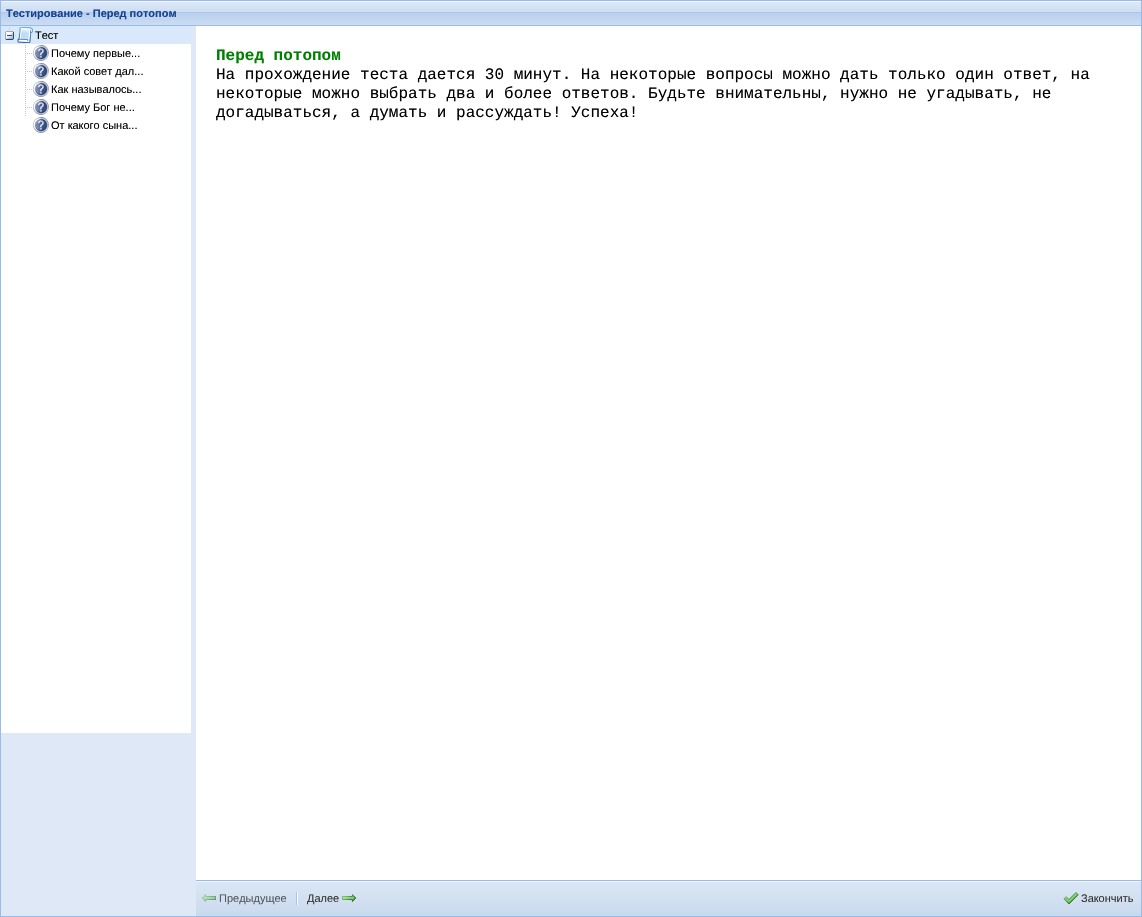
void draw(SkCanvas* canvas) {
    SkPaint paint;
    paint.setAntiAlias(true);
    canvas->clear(0xFFFFFFFF);
    canvas->drawImageRect(SkImages::DeferredFromEncodedData(SkData::MakeFromFileName("img1.png")), SkRect::MakeXYWH(1, 1, 1140, 24), SkSamplingOptions());
    paint.setStyle(SkPaint::kStroke_Style);
    paint.setStrokeWidth(1);
    paint.setColor(0xFF99BBE8);
    canvas->drawRect(SkRect::MakeXYWH(0.5f, 0.5f, 1141, 25), paint);
    SkFont font1(fontMgr->matchFamilyStyle("Liberation Sans", SkFontStyle::Bold()), 11);
    font1.setSubpixel(true);
    paint.setStyle(SkPaint::kFill_Style);
    paint.setColor(0xFF15428B);
    canvas->drawString("Тестирование - Перед потопом", 6, 17, font1, paint);
    paint.setColor(0xFFDFE8F6);
    canvas->drawRect(SkRect::MakeXYWH(1, 26, 195, 890), paint);
    paint.setColor(0xFF99BBE8);
    canvas->drawRect(SkRect::MakeXYWH(1141, 26, 1, 891), paint);
    canvas->drawRect(SkRect::MakeXYWH(0, 916, 1142, 1), paint);
    canvas->drawRect(SkRect::MakeXYWH(0, 26, 1, 891), paint);
    paint.setColor(0xFFFFFFFF);
    canvas->drawRect(SkRect::MakeXYWH(1, 44, 190, 689), paint);
    paint.setColor(0xFFD9E8FB);
    canvas->drawRect(SkRect::MakeXYWH(1, 26, 190, 18), paint);
    canvas->drawImageRect(SkImages::DeferredFromEncodedData(SkData::MakeFromFileName("img2.png")), SkRect::MakeXYWH(5, 27, 11, 13), SkSamplingOptions());
    canvas->drawImageRect(SkImages::DeferredFromEncodedData(SkData::MakeFromFileName("img3.png")), SkRect::MakeXYWH(17, 27, 16, 16), SkSamplingOptions());
    SkFont font2(fontMgr->matchFamilyStyle("Liberation Sans", SkFontStyle::Normal()), 11);
    font2.setSubpixel(true);
    paint.setColor(0xFF000000);
    canvas->drawString("Тест", 35, 39, font2, paint);
    canvas->drawImageRect(SkImages::DeferredFromEncodedData(SkData::MakeFromFileName("img4.png")), SkRect::MakeXYWH(25, 45, 7, 17), SkSamplingOptions());
    canvas->drawImageRect(SkImages::DeferredFromEncodedData(SkData::MakeFromFileName("img5.png")), SkRect::MakeXYWH(33, 45, 16, 16), SkSamplingOptions());
    canvas->drawString("Почему первые...", 51, 57, font2, paint);
    canvas->drawImageRect(SkImages::DeferredFromEncodedData(SkData::MakeFromFileName("img4.png")), SkRect::MakeXYWH(25, 63, 7, 17), SkSamplingOptions());
    canvas->drawImageRect(SkImages::DeferredFromEncodedData(SkData::MakeFromFileName("img5.png")), SkRect::MakeXYWH(33, 63, 16, 16), SkSamplingOptions());
    canvas->drawString("Какой совет дал...", 51, 75, font2, paint);
    canvas->drawImageRect(SkImages::DeferredFromEncodedData(SkData::MakeFromFileName("img4.png")), SkRect::MakeXYWH(25, 81, 7, 17), SkSamplingOptions());
    canvas->drawImageRect(SkImages::DeferredFromEncodedData(SkData::MakeFromFileName("img5.png")), SkRect::MakeXYWH(33, 81, 16, 16), SkSamplingOptions());
    canvas->drawString("Как называлось...", 51, 93, font2, paint);
    canvas->drawImageRect(SkImages::DeferredFromEncodedData(SkData::MakeFromFileName("img4.png")), SkRect::MakeXYWH(25, 99, 7, 17), SkSamplingOptions());
    canvas->drawImageRect(SkImages::DeferredFromEncodedData(SkData::MakeFromFileName("img5.png")), SkRect::MakeXYWH(33, 99, 16, 16), SkSamplingOptions());
    canvas->drawString("Почему Бог не...", 51, 111, font2, paint);
    canvas->drawImageRect(SkImages::DeferredFromEncodedData(SkData::MakeFromFileName("img5.png")), SkRect::MakeXYWH(33, 117, 16, 16), SkSamplingOptions());
    canvas->drawString("От какого сына...", 51, 129, font2, paint);
    SkFont font3(fontMgr->matchFamilyStyle("Liberation Mono", SkFontStyle::Bold()), 16);
    font3.setSubpixel(true);
    paint.setColor(0xFF008000);
    canvas->drawString("Перед потопом", 216, 60, font3, paint);
    SkFont font4(fontMgr->matchFamilyStyle("Liberation Mono", SkFontStyle::Normal()), 16);
    font4.setSubpixel(true);
    paint.setColor(0xFF000000);
    canvas->drawString("На прохождение теста дается 30 минут. На некоторые вопросы можно дать только один ответ, на", 216, 79, font4, paint);
    canvas->drawString("некоторые можно выбрать два и более ответов. Будьте внимательны, нужно не угадывать, не", 216, 98, font4, paint);
    canvas->drawString("догадываться, а думать и рассуждать! Успеха!", 216, 117, font4, paint);
    canvas->drawImageRect(SkImages::DeferredFromEncodedData(SkData::MakeFromFileName("img6.png")), SkRect::MakeXYWH(196, 881, 945, 35), SkSamplingOptions());
    paint.setColor(0xFF99BBE8);
    canvas->drawRect(SkRect::MakeXYWH(196, 880, 945, 1), paint);
    canvas->drawImageRect(SkImages::DeferredFromEncodedData(SkData::MakeFromFileName("img7.png")), SkRect::MakeXYWH(202, 894, 14, 8), SkSamplingOptions());
    paint.setColor(0xFF545960);
    canvas->drawString("Предыдущее", 219, 902, font2, paint);
    canvas->drawImageRect(SkImages::DeferredFromEncodedData(SkData::MakeFromFileName("img8.png")), SkRect::MakeXYWH(296, 892, 2, 13), SkSamplingOptions());
    canvas->drawImageRect(SkImages::DeferredFromEncodedData(SkData::MakeFromFileName("img9.png")), SkRect::MakeXYWH(342, 894, 14, 8), SkSamplingOptions());
    paint.setColor(0xFF333333);
    canvas->drawString("Далее", 307, 902, font2, paint);
    canvas->drawImageRect(SkImages::DeferredFromEncodedData(SkData::MakeFromFileName("img10.png")), SkRect::MakeXYWH(1063, 892, 16, 13), SkSamplingOptions());
    canvas->drawString("Закончить", 1081, 902, font2, paint);
}
